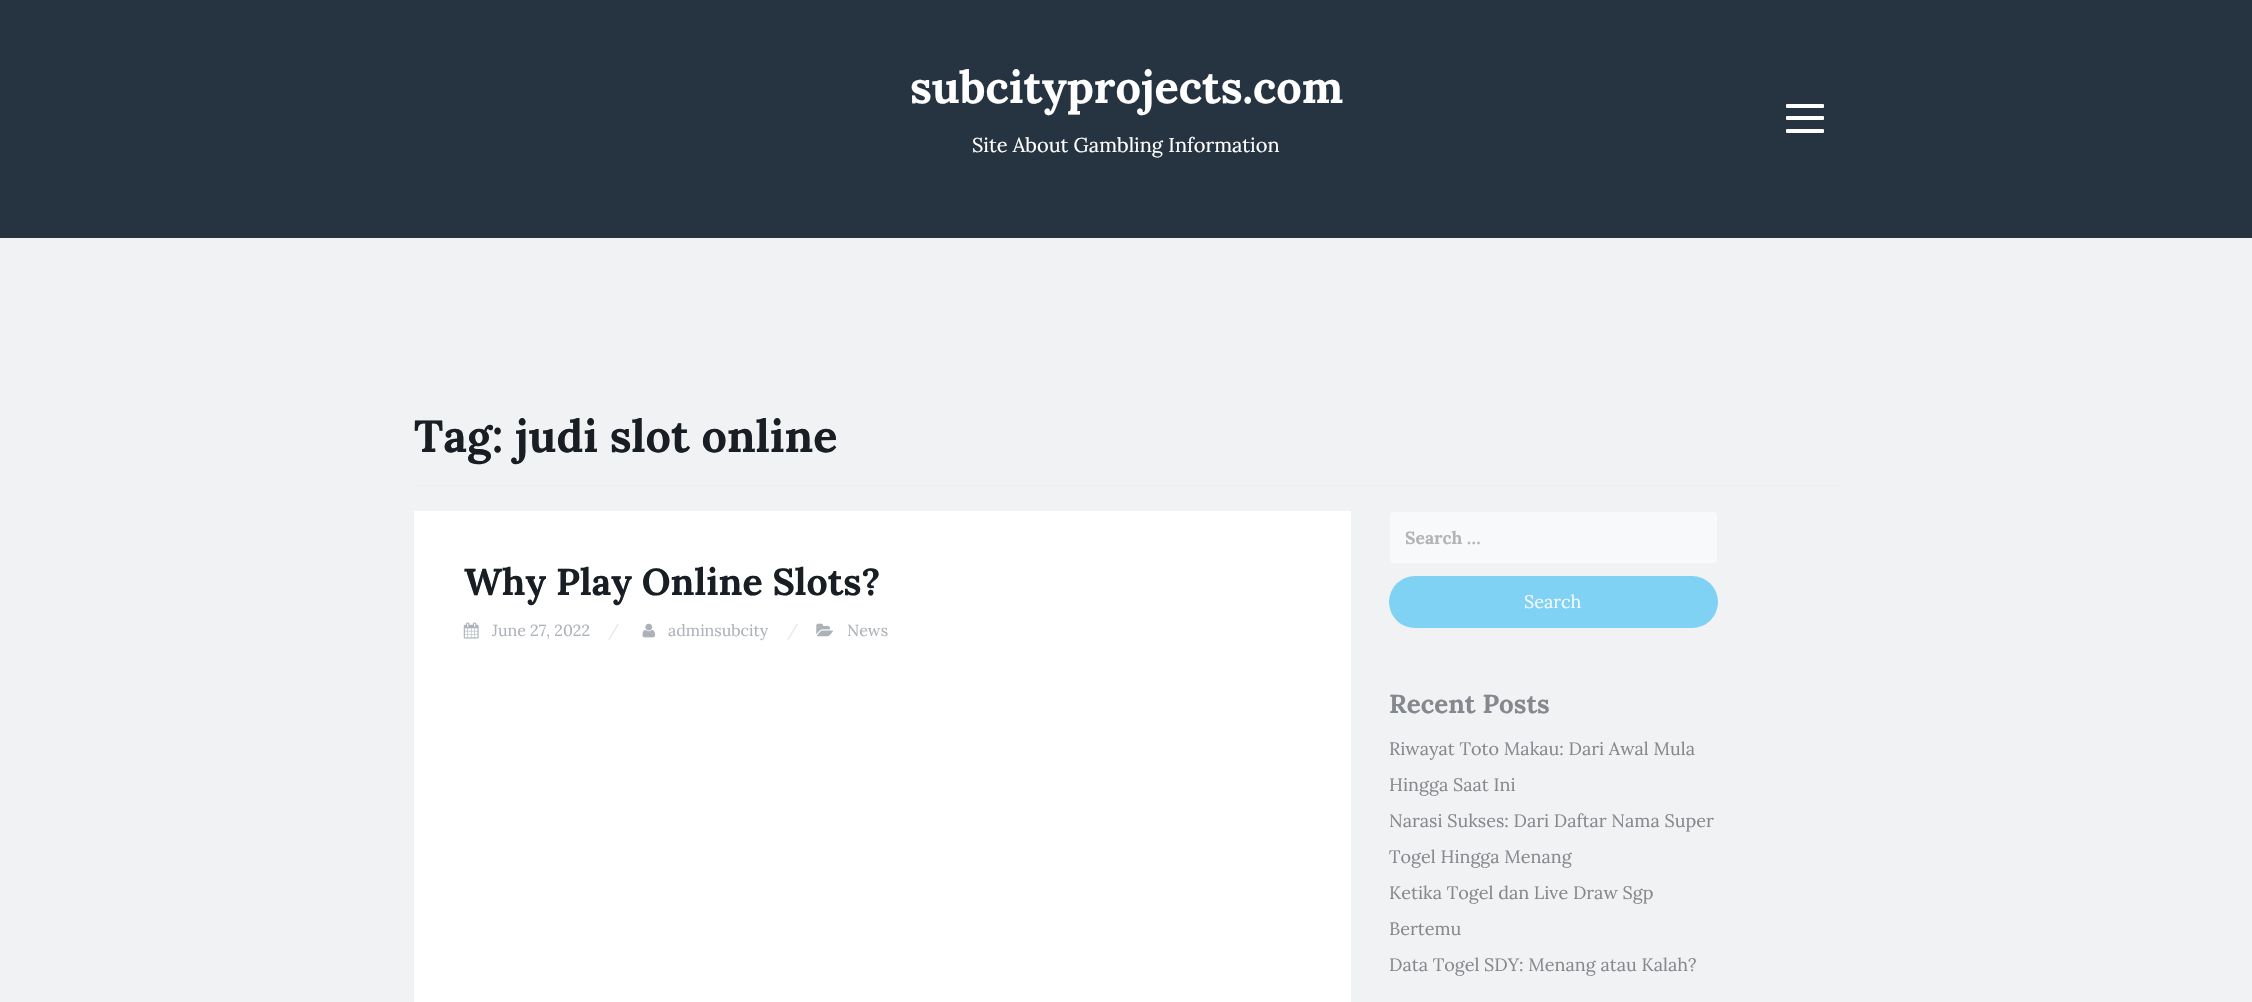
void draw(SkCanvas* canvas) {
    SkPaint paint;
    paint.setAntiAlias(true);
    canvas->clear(0xFFF1F2F4);
    paint.setColor(0xFF263340);
    canvas->drawRect(SkRect::MakeXYWH(0, 0, 2252, 238), paint);
    SkFont font1(fontMgr->matchFamilyStyle("Lora", SkFontStyle::Bold()), 45);
    font1.setSubpixel(true);
    paint.setColor(0xFFFFFFFF);
    canvas->drawString("subcityprojects.com", 910, 103, font1, paint);
    SkFont font2(fontMgr->matchFamilyStyle("Lora", SkFontStyle::Normal()), 20);
    font2.setSubpixel(true);
    canvas->drawString("Site About Gambling Information", 972, 152, font2, paint);
    canvas->drawRoundRect(SkRect::MakeXYWH(1786, 104, 38, 4), 1, 1, paint);
    canvas->drawRoundRect(SkRect::MakeXYWH(1786, 116, 38, 4), 1, 1, paint);
    canvas->drawRoundRect(SkRect::MakeXYWH(1786, 129, 38, 4), 1, 1, paint);
    paint.setColor(0xFFEEEEEE);
    canvas->drawRect(SkRect::MakeXYWH(414, 485, 1425, 1), paint);
    paint.setColor(0xFF191E24);
    canvas->drawString("Tag: judi slot online", 414, 452, font1, paint);
    paint.setColor(0xFFFFFFFF);
    canvas->drawRect(SkRect::MakeXYWH(414, 511, 937, 491), paint);
    SkFont font3(fontMgr->matchFamilyStyle("Lora", SkFontStyle::Bold()), 37.5f);
    font3.setSubpixel(true);
    paint.setColor(0xFF191E24);
    canvas->drawString("Why Play Online Slots?", 464, 595, font3, paint);
    canvas->drawImageRect(SkImages::DeferredFromEncodedData(SkData::MakeFromFileName("img1.png")), SkRect::MakeXYWH(463, 622, 16, 17), SkSamplingOptions());
    SkFont font4(fontMgr->matchFamilyStyle("Lora", SkFontStyle::Normal()), 16);
    font4.setSubpixel(true);
    paint.setColor(0xFFADB2B8);
    canvas->drawString("June 27, 2022", 492, 636, font4, paint);
    paint.setColor(0xFFE7E9EC);
    canvas->drawString("/", 608, 636, font4, paint);
    canvas->drawImageRect(SkImages::DeferredFromEncodedData(SkData::MakeFromFileName("img2.png")), SkRect::MakeXYWH(642, 623, 14, 15), SkSamplingOptions());
    paint.setColor(0xFFADB2B8);
    canvas->drawString("adminsubcity", 668, 636, font4, paint);
    paint.setColor(0xFFE7E9EC);
    canvas->drawString("/", 787, 636, font4, paint);
    canvas->drawImageRect(SkImages::DeferredFromEncodedData(SkData::MakeFromFileName("img3.png")), SkRect::MakeXYWH(816, 623, 17, 14), SkSamplingOptions());
    paint.setColor(0xFFADB2B8);
    canvas->drawString("News", 847, 636, font4, paint);
    paint.setColor(0xFFF8F9FA);
    canvas->drawRoundRect(SkRect::MakeXYWH(1389.5f, 511.5f, 328, 52), 3.5f, 3.5f, paint);
    paint.setStyle(SkPaint::kStroke_Style);
    paint.setStrokeWidth(1);
    paint.setColor(0xFFF1F2F4);
    canvas->drawRoundRect(SkRect::MakeXYWH(1389.5f, 511.5f, 328, 52), 3.5f, 3.5f, paint);
    SkFont font5(fontMgr->matchFamilyStyle("Lora", SkFontStyle::Bold()), 17.5f);
    font5.setSubpixel(true);
    paint.setStyle(SkPaint::kFill_Style);
    paint.setColor(0xFFB3B4B5);
    canvas->drawString("Search …", 1405, 544, font5, paint);
    paint.setColor(0xFF80D2F5);
    canvas->drawRoundRect(SkRect::MakeXYWH(1389, 576, 329, 52), 26, 26, paint);
    SkFont font6(fontMgr->matchFamilyStyle("Lora", SkFontStyle::Normal()), 18);
    font6.setSubpixel(true);
    paint.setColor(0xFFF8F9FA);
    canvas->drawString("Search", 1524, 608, font6, paint);
    SkFont font7(fontMgr->matchFamilyStyle("Lora", SkFontStyle::Bold()), 26);
    font7.setSubpixel(true);
    paint.setColor(0xFF85888C);
    canvas->drawString("Recent Posts", 1389, 713, font7, paint);
    canvas->drawString("Riwayat Toto Makau: Dari Awal Mula", 1389, 755, font6, paint);
    canvas->drawString("Hingga Saat Ini", 1389, 791, font6, paint);
    canvas->drawString("Narasi Sukses: Dari Daftar Nama Super", 1389, 827, font6, paint);
    canvas->drawString("Togel Hingga Menang", 1389, 863, font6, paint);
    canvas->drawString("Ketika Togel dan Live Draw Sgp", 1389, 899, font6, paint);
    canvas->drawString("Bertemu", 1389, 935, font6, paint);
    canvas->drawString("Data Togel SDY: Menang atau Kalah?", 1389, 971, font6, paint);
}
